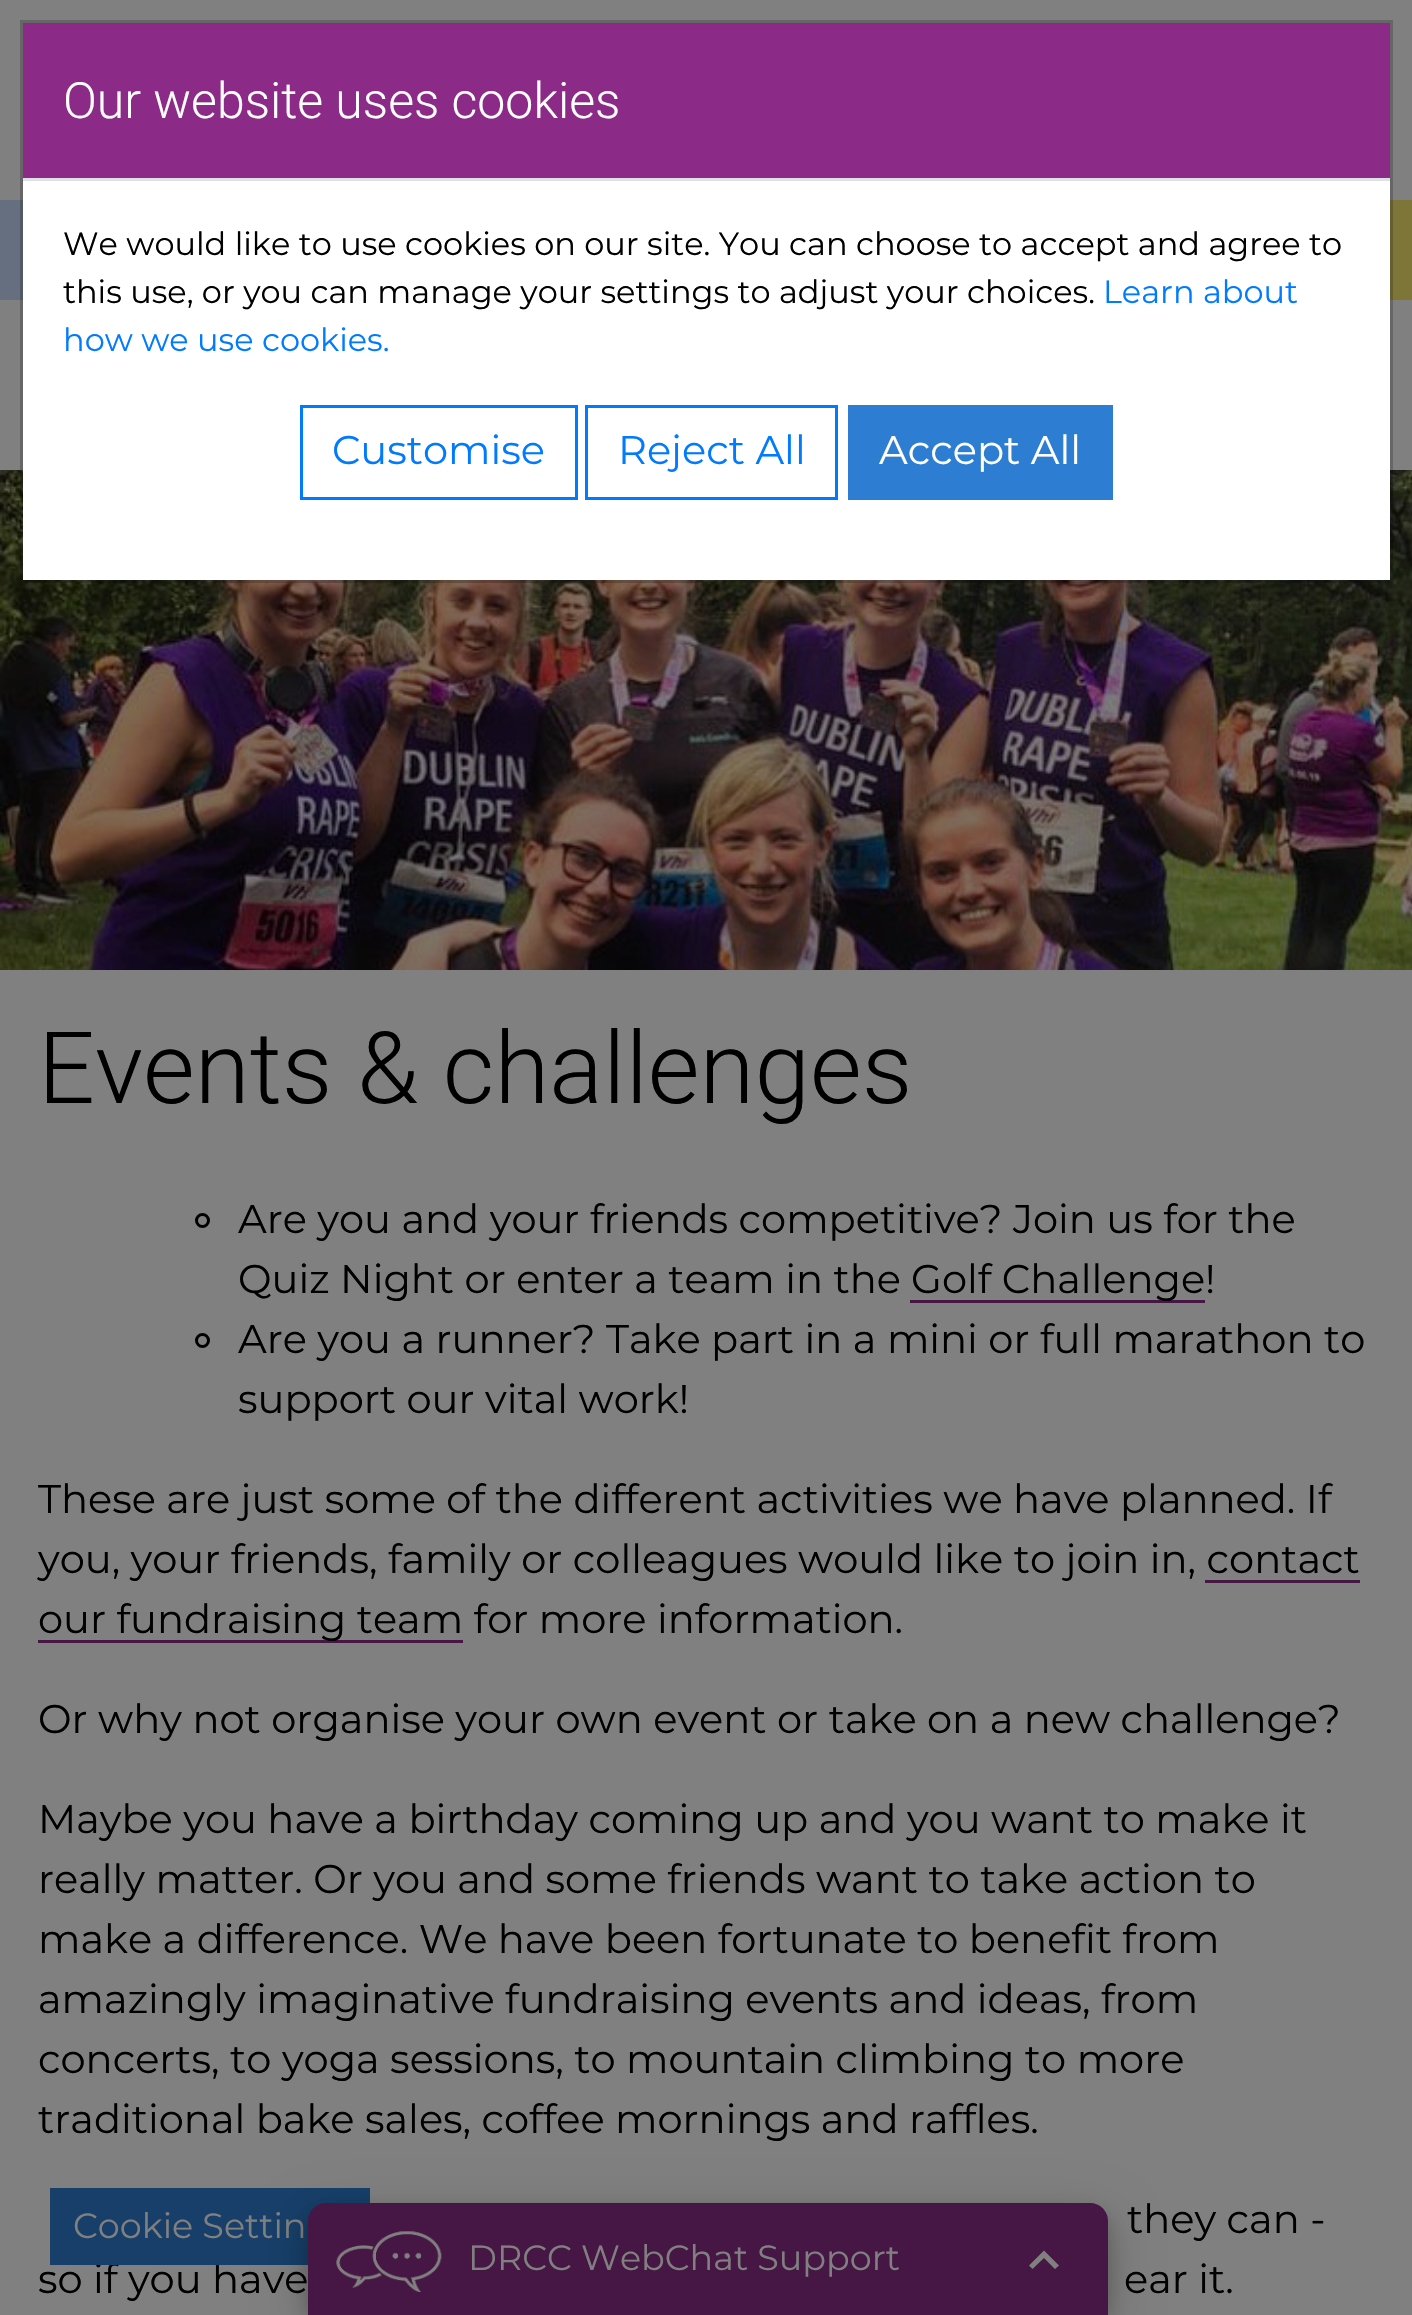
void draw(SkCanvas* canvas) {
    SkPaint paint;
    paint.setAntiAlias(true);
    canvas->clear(0xFF808080);
    canvas->drawImageRect(SkImages::DeferredFromEncodedData(SkData::MakeFromFileName("img1.png")), SkRect::MakeXYWH(0, 470, 1412, 500), SkSamplingOptions());
    paint.setColor(0xFFFFFFFF);
    canvas->drawRect(SkRect::MakeXYWH(23, 181, 1367, 399), paint);
    paint.setColor(0xFF656F80);
    canvas->drawRect(SkRect::MakeXYWH(0, 200, 23, 100), paint);
    paint.setColor(0xFF7E7639);
    canvas->drawRect(SkRect::MakeXYWH(1390, 200, 22, 100), paint);
    paint.setStyle(SkPaint::kStroke_Style);
    paint.setStrokeWidth(3);
    paint.setColor(0x33000000);
    canvas->drawRect(SkRect::MakeXYWH(21.5f, 21.5f, 1370, 560), paint);
    paint.setStyle(SkPaint::kFill_Style);
    paint.setColor(0xFF8B2B87);
    canvas->drawRect(SkRect::MakeXYWH(23, 23, 1367, 155), paint);
    paint.setColor(0xFFDEE2E6);
    canvas->drawRect(SkRect::MakeXYWH(23, 178, 1367, 3), paint);
    SkFont font1(fontMgr->matchFamilyStyle("Roboto", SkFontStyle(300, SkFontStyle::kNormal_Width, SkFontStyle::kUpright_Slant)), 50);
    font1.setSubpixel(true);
    paint.setColor(0xFFFFFFFF);
    canvas->drawString("Our website uses cookies", 63, 118, font1, paint);
    SkFont font2(fontMgr->matchFamilyStyle("Montserrat", SkFontStyle::Normal()), 32);
    font2.setSubpixel(true);
    paint.setColor(0xFF000000);
    canvas->drawString("We would like to use cookies on our site. You can choose to accept and agree to", 63, 255, font2, paint);
    canvas->drawString("this use, or you can manage your settings to adjust your choices.", 63, 303, font2, paint);
    paint.setColor(0xFF007BFF);
    canvas->drawString("Learn about", 1103, 303, font2, paint);
    canvas->drawString("how we use cookies.", 63, 351, font2, paint);
    paint.setStyle(SkPaint::kStroke_Style);
    canvas->drawRect(SkRect::MakeXYWH(301.5f, 406.5f, 275, 92), paint);
    SkFont font3(fontMgr->matchFamilyStyle("Montserrat", SkFontStyle::Normal()), 40);
    font3.setSubpixel(true);
    paint.setStyle(SkPaint::kFill_Style);
    canvas->drawString("Customise", 332, 464, font3, paint);
    paint.setStyle(SkPaint::kStroke_Style);
    canvas->drawRect(SkRect::MakeXYWH(586.5f, 406.5f, 250, 92), paint);
    paint.setStyle(SkPaint::kFill_Style);
    canvas->drawString("Reject All", 618, 464, font3, paint);
    paint.setColor(0xFF2D7DD2);
    canvas->drawRect(SkRect::MakeXYWH(848, 405, 265, 95), paint);
    paint.setColor(0xFFFFFFFF);
    canvas->drawString("Accept All", 879, 464, font3, paint);
    SkFont font4(fontMgr->matchFamilyStyle("Roboto", SkFontStyle(300, SkFontStyle::kNormal_Width, SkFontStyle::kUpright_Slant)), 100);
    font4.setSubpixel(true);
    paint.setColor(0xFF000000);
    canvas->drawString("Events & challenges", 38, 1103, font4, paint);
    paint.setStyle(SkPaint::kStroke_Style);
    canvas->drawCircle(202.5f, 1220.5f, 6, paint);
    paint.setStyle(SkPaint::kFill_Style);
    canvas->drawString("Are you and your friends competitive? Join us for the", 238, 1233, font3, paint);
    canvas->drawString("Quiz Night or enter a team in the", 238, 1293, font3, paint);
    paint.setColor(0xFF461644);
    canvas->drawRect(SkRect::MakeXYWH(910, 1300, 295, 3), paint);
    paint.setColor(0xFF000000);
    canvas->drawString("Golf Challenge!", 911, 1293, font3, paint);
    paint.setStyle(SkPaint::kStroke_Style);
    canvas->drawCircle(202.5f, 1340.5f, 6, paint);
    paint.setStyle(SkPaint::kFill_Style);
    canvas->drawString("Are you a runner? Take part in a mini or full marathon to", 238, 1353, font3, paint);
    canvas->drawString("support our vital work!", 238, 1413, font3, paint);
    canvas->drawString("These are just some of the different activities we have planned. If", 38, 1513, font3, paint);
    canvas->drawString("you, your friends, family or colleagues would like to join in, contact", 38, 1573, font3, paint);
    paint.setColor(0xFF461644);
    canvas->drawRect(SkRect::MakeXYWH(38, 1640, 425, 3), paint);
    paint.setColor(0xFF000000);
    canvas->drawString("our fundraising team for more information.", 38, 1633, font3, paint);
    paint.setColor(0xFF461644);
    canvas->drawRect(SkRect::MakeXYWH(1205, 1580, 155, 3), paint);
    paint.setColor(0xFF000000);
    canvas->drawString("Or why not organise your own event or take on a new challenge?", 38, 1733, font3, paint);
    canvas->drawString("Maybe you have a birthday coming up and you want to make it", 38, 1833, font3, paint);
    canvas->drawString("really matter. Or you and some friends want to take action to", 38, 1893, font3, paint);
    canvas->drawString("make a difference. We have been fortunate to benefit from", 38, 1953, font3, paint);
    canvas->drawString("amazingly imaginative fundraising events and ideas, from", 38, 2013, font3, paint);
    canvas->drawString("concerts, to yoga sessions, to mountain climbing to more", 38, 2073, font3, paint);
    canvas->drawString("traditional bake sales, coffee mornings and raffles.", 38, 2133, font3, paint);
    canvas->drawString("they can -", 1127, 2233, font3, paint);
    canvas->drawString("so if you have", 38, 2293, font3, paint);
    canvas->drawString("ear it.", 1124, 2293, font3, paint);
    paint.setColor(0xFF173F69);
    canvas->drawRect(SkRect::MakeXYWH(50, 2188, 320, 77), paint);
    SkFont font5(fontMgr->matchFamilyStyle("Montserrat", SkFontStyle::Normal()), 35);
    font5.setSubpixel(true);
    paint.setColor(0xFF808080);
    canvas->drawString("Cookie Settin", 73, 2238, font5, paint);
    paint.setColor(0x30000000);
    paint.setMaskFilter(SkMaskFilter::MakeBlur(kNormal_SkBlurStyle, 25));
    canvas->drawRoundRect(SkRect::MakeXYWH(308, 2218, 800, 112), 18, 18, paint);
    paint.setMaskFilter(nullptr);
    paint.setColor(0x33000000);
    paint.setMaskFilter(SkMaskFilter::MakeBlur(kNormal_SkBlurStyle, 10));
    canvas->drawRoundRect(SkRect::MakeXYWH(308, 2213, 800, 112), 18, 18, paint);
    paint.setMaskFilter(nullptr);
    paint.setColor(0xFF461644);
    canvas->drawPath(SkPathBuilder().moveTo(326, 2203).lineTo(1090, 2203).cubicTo(1100, 2203, 1108, 2211, 1108, 2221).lineTo(1108, 2315).lineTo(308, 2315).lineTo(308, 2221).cubicTo(308, 2211, 316, 2203, 326, 2203).close().detach(), paint);
    canvas->drawImageRect(SkImages::DeferredFromEncodedData(SkData::MakeFromFileName("img2.png")), SkRect::MakeXYWH(336, 2231, 106, 62), SkSamplingOptions());
    paint.setColor(0xFF808080);
    canvas->drawString("DRCC WebChat Support", 468, 2270, font5, paint);
    canvas->drawPath(SkPathBuilder().moveTo(1032.5f, 2269).lineTo(1044, 2258).lineTo(1055, 2269).lineTo(1059, 2265.5f).lineTo(1044, 2250.5f).lineTo(1029, 2265.5f).close().detach(), paint);
}
